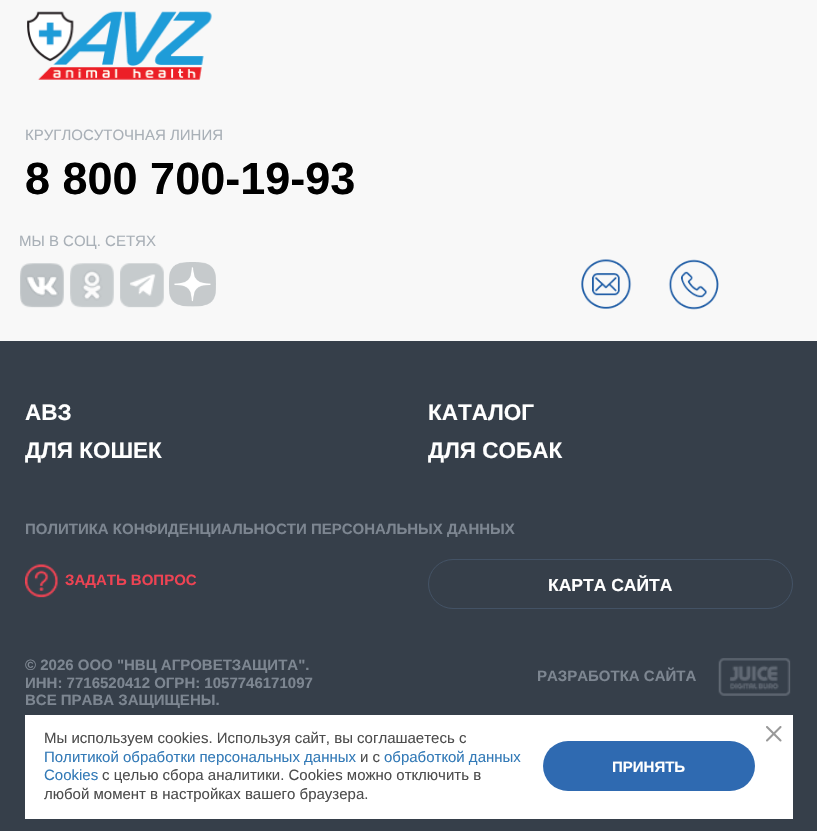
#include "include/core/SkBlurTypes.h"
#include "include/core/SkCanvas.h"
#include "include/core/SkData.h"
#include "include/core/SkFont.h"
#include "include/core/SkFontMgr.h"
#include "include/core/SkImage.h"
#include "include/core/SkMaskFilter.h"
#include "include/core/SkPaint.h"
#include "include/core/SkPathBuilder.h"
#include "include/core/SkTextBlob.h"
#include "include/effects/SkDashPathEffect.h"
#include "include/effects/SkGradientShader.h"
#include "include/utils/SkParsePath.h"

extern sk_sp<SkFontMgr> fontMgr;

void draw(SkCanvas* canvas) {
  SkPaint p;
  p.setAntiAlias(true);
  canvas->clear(SkColorSetRGB(248, 248, 248));
  canvas->drawImageRect(SkImages::DeferredFromEncodedData(SkData::MakeFromFileName("images/1.png")), SkRect::MakeLTRB(27, 11, 212, 80), SkSamplingOptions());
  canvas->drawImageRect(SkImages::DeferredFromEncodedData(SkData::MakeFromFileName("images/2.png")), SkRect::MakeLTRB(20, 263, 64, 308), SkSamplingOptions());
  canvas->drawImageRect(SkImages::DeferredFromEncodedData(SkData::MakeFromFileName("images/3.png")), SkRect::MakeLTRB(70, 263, 114, 308), SkSamplingOptions());
  canvas->drawImageRect(SkImages::DeferredFromEncodedData(SkData::MakeFromFileName("images/4.png")), SkRect::MakeLTRB(120, 263, 164, 308), SkSamplingOptions());
  canvas->drawImageRect(SkImages::DeferredFromEncodedData(SkData::MakeFromFileName("images/5.png")), SkRect::MakeLTRB(169, 262, 216, 307), SkSamplingOptions());
  canvas->drawImageRect(SkImages::DeferredFromEncodedData(SkData::MakeFromFileName("images/6.png")), SkRect::MakeLTRB(581, 259, 632, 309), SkSamplingOptions());
  canvas->drawImageRect(SkImages::DeferredFromEncodedData(SkData::MakeFromFileName("images/7.png")), SkRect::MakeLTRB(668, 259, 719, 310), SkSamplingOptions());
  p.setColor(SkColorSetRGB(54, 63, 74));
  canvas->drawRect(SkRect::MakeLTRB(0, 341, 817, 831), p);
  canvas->drawImageRect(SkImages::DeferredFromEncodedData(SkData::MakeFromFileName("images/8.png")), SkRect::MakeLTRB(25, 564, 58, 598), SkSamplingOptions());
  p.setStyle(SkPaint::kStroke_Style);
  p.setStrokeWidth(1);
  p.setColor(SkColorSetRGB(67, 82, 101));
  canvas->drawRoundRect(SkRect::MakeLTRB(428.5f, 559.5f, 792.5f, 608.5f), 24.5f, 24.5f, p);
  canvas->drawImageRect(SkImages::DeferredFromEncodedData(SkData::MakeFromFileName("images/9.png")), SkRect::MakeLTRB(718, 658, 791, 696), SkSamplingOptions());
  p.setStyle(SkPaint::kFill_Style);
  p.setColor(SK_ColorWHITE);
  canvas->drawRect(SkRect::MakeLTRB(25, 715, 793, 819), p);
  p.setColor(SkColorSetRGB(47, 106, 177));
  canvas->drawRoundRect(SkRect::MakeLTRB(543, 741, 755, 791), 25, 25, p);
  canvas->drawImageRect(SkImages::DeferredFromEncodedData(SkData::MakeFromFileName("images/10.png")), SkRect::MakeLTRB(766, 726, 782, 742), SkSamplingOptions());
  SkFont font1(fontMgr->matchFamilyStyle("Liberation Sans", SkFontStyle::Normal()), 15);
  font1.setSubpixel(true);
  p.setColor(SkColorSetRGB(169, 176, 183));
  canvas->drawString("КРУГЛОСУТОЧНАЯ ЛИНИЯ", 25, 140, font1, p);
  SkFont font2(fontMgr->matchFamilyStyle("Liberation Sans", SkFontStyle::Bold()), 45);
  font2.setSubpixel(true);
  p.setColor(SK_ColorBLACK);
  canvas->drawString("8 800 700-19-93", 25, 194, font2, p);
  p.setColor(SkColorSetRGB(169, 176, 183));
  canvas->drawString("МЫ В СОЦ. СЕТЯХ", 19, 246, font1, p);
  SkFont font3(fontMgr->matchFamilyStyle("Liberation Sans", SkFontStyle::Bold()), 22.5f);
  font3.setSubpixel(true);
  p.setColor(SK_ColorWHITE);
  canvas->drawString("АВЗ", 25, 420, font3, p);
  canvas->drawString("КАТАЛОГ", 428, 420, font3, p);
  canvas->drawString("ДЛЯ КОШЕК", 25, 458, font3, p);
  canvas->drawString("ДЛЯ СОБАК", 428, 458, font3, p);
  SkFont font4(fontMgr->matchFamilyStyle("Liberation Sans", SkFontStyle::Bold()), 15);
  font4.setSubpixel(true);
  p.setColor(SkColorSetRGB(125, 134, 145));
  canvas->drawString("ПОЛИТИКА КОНФИДЕНЦИАЛЬНОСТИ ПЕРСОНАЛЬНЫХ ДАННЫХ", 25, 534, font4, p);
  p.setColor(SkColorSetRGB(238, 67, 83));
  canvas->drawString("ЗАДАТЬ ВОПРОС", 65, 585, font4, p);
  SkFont font5(fontMgr->matchFamilyStyle("Liberation Sans", SkFontStyle::Bold()), 17.5f);
  font5.setSubpixel(true);
  p.setColor(SK_ColorWHITE);
  canvas->drawString("КАРТА САЙТА", 548, 591, font5, p);
  p.setColor(SkColorSetRGB(125, 134, 145));
  canvas->drawString("© 2026 ООО \"НВЦ АГРОВЕТЗАЩИТА\".", 25, 670, font4, p);
  canvas->drawString("ИНН: 7716520412 ОГРН: 1057746171097", 25, 688, font4, p);
  canvas->drawString("ВСЕ ПРАВА ЗАЩИЩЕНЫ.", 25, 705, font4, p);
  canvas->drawString("РАЗРАБОТКА САЙТА", 537, 681, font4, p);
  p.setColor(SkColorSetRGB(77, 77, 77));
  canvas->drawString("Мы используем cookies. Используя сайт, вы соглашаетесь c", 44, 743, font1, p);
  p.setColor(SkColorSetRGB(51, 122, 183));
  canvas->drawString("Политикой обработки персональных данных", 44, 762, font1, p);
  p.setColor(SkColorSetRGB(77, 77, 77));
  canvas->drawString("и с", 360, 762, font1, p);
  p.setColor(SkColorSetRGB(51, 122, 183));
  canvas->drawString("обработкой данных", 384, 762, font1, p);
  canvas->drawString("Cookies", 44, 780, font1, p);
  p.setColor(SkColorSetRGB(77, 77, 77));
  canvas->drawString("с целью сбора аналитики. Cookies можно отключить в", 102, 780, font1, p);
  canvas->drawString("любой момент в настройках вашего браузера.", 44, 799, font1, p);
  p.setColor(SK_ColorWHITE);
  canvas->drawString("ПРИНЯТЬ", 612, 772, font4, p);
}
